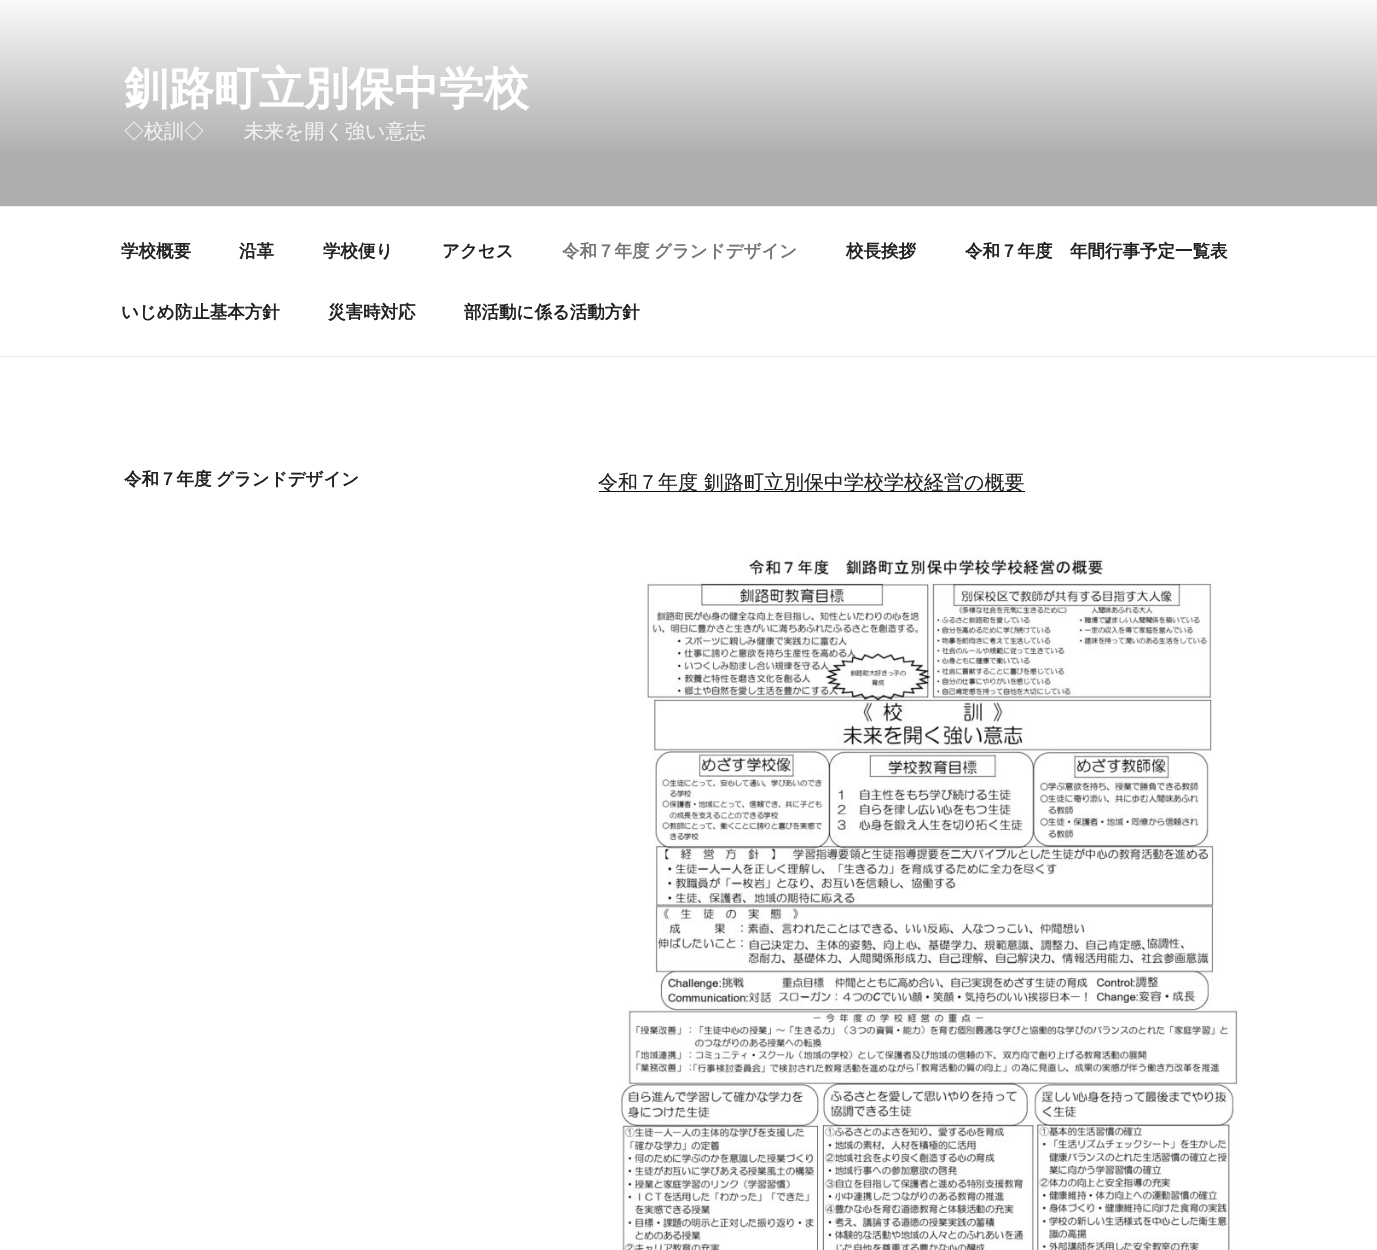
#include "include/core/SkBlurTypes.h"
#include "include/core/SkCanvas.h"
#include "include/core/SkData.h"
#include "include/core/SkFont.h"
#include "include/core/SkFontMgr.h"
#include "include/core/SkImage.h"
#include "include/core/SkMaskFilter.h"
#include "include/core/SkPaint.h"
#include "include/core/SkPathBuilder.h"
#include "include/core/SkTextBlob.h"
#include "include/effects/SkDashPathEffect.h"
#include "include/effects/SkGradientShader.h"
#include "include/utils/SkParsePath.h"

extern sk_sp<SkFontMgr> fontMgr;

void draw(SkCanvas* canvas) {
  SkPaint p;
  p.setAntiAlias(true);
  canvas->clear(SK_ColorWHITE);
  {
    const SkColor colors[] = {SkColorSetRGB(249, 249, 249), SkColorSetRGB(174, 174, 174), SkColorSetRGB(174, 174, 174)};
    const float stops[] = {0, 0.75f, 1};
    const SkPoint ends[] = {{689, 0}, {689, 206}};
    p.setShader(SkGradientShader::MakeLinear(ends, colors, stops, 3, SkTileMode::kClamp));
    p.setAlpha(255);
  }
  canvas->drawRect(SkRect::MakeLTRB(0, 0, 1377, 206), p);
  p.setShader(nullptr);
  p.setColor(SkColorSetRGB(238, 238, 238));
  canvas->drawRect(SkRect::MakeLTRB(0, 206, 1377, 207), p);
  canvas->drawRect(SkRect::MakeLTRB(0, 356, 1377, 357), p);
  p.setColor(SkColorSetRGB(15, 15, 15));
  canvas->drawRect(SkRect::MakeLTRB(599, 491, 1025, 492), p);
  canvas->drawImageRect(SkImages::DeferredFromEncodedData(SkData::MakeFromFileName("images/1.png")), SkRect::MakeLTRB(619, 555, 1238, 1250), SkSamplingOptions());
  SkFont font1(fontMgr->matchFamilyStyle("WenQuanYi Zen Hei", SkFontStyle::Bold()), 45);
  font1.setSubpixel(true);
  p.setColor(SK_ColorWHITE);
  canvas->drawString("釧路町立別保中学校", 124, 104, font1, p);
  SkFont font2(fontMgr->matchFamilyStyle("WenQuanYi Zen Hei", SkFontStyle(500, SkFontStyle::kNormal_Width, SkFontStyle::kUpright_Slant)), 20);
  font2.setSubpixel(true);
  p.setColor(SkColorSetRGB(241, 241, 241));
  canvas->drawString("◇校訓◇　　未来を開く強い意志", 124, 138, font2, p);
  SkFont font3(fontMgr->matchFamilyStyle("WenQuanYi Zen Hei", SkFontStyle::Bold()), 17.5f);
  font3.setSubpixel(true);
  p.setColor(SkColorSetRGB(34, 34, 34));
  canvas->drawString("学校概要", 121, 257, font3, p);
  canvas->drawString("沿革", 239, 257, font3, p);
  canvas->drawString("学校便り", 323, 257, font3, p);
  canvas->drawString("アクセス", 442, 257, font3, p);
  p.setColor(SkColorSetRGB(118, 118, 118));
  canvas->drawString("令和７年度", 562, 257, font3, p);
  canvas->drawString("グランドデザイン", 654, 257, font3, p);
  p.setColor(SkColorSetRGB(34, 34, 34));
  canvas->drawString("校長挨拶", 846, 257, font3, p);
  canvas->drawString("令和７年度　年間行事予定一覧表", 965, 257, font3, p);
  canvas->drawString("いじめ防止基本方針", 121, 318, font3, p);
  canvas->drawString("災害時対応", 328, 318, font3, p);
  canvas->drawString("部活動に係る活動方針", 464, 318, font3, p);
  canvas->drawString("令和７年度", 124, 485, font3, p);
  canvas->drawString("グランドデザイン", 216, 485, font3, p);
  canvas->drawString("令和７年度 釧路町立別保中学校学校経営の概要", 598, 489, font2, p);
}
